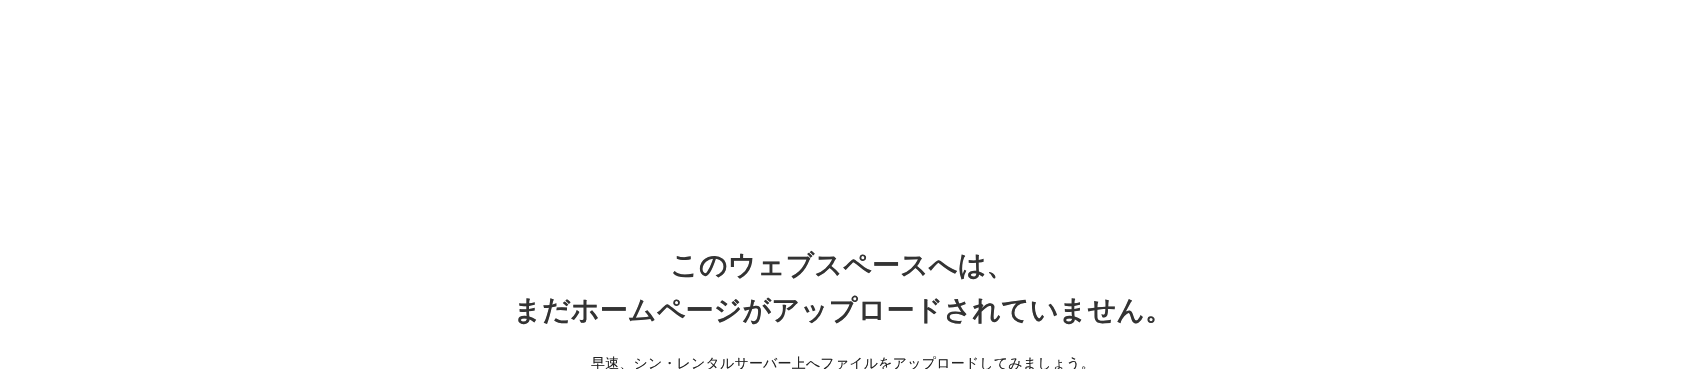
#include "include/core/SkBlurTypes.h"
#include "include/core/SkCanvas.h"
#include "include/core/SkData.h"
#include "include/core/SkFont.h"
#include "include/core/SkFontMgr.h"
#include "include/core/SkImage.h"
#include "include/core/SkMaskFilter.h"
#include "include/core/SkPaint.h"
#include "include/core/SkPathBuilder.h"
#include "include/core/SkTextBlob.h"
#include "include/effects/SkDashPathEffect.h"
#include "include/effects/SkGradientShader.h"
#include "include/utils/SkParsePath.h"

extern sk_sp<SkFontMgr> fontMgr;

void draw(SkCanvas* canvas) {
  SkPaint p;
  p.setAntiAlias(true);
  auto spacedText = [&](const char* s, float x, float y, const SkFont& font, const SkPaint& ink, float letter, float word) {
    std::vector<SkGlyphID> glyphs(font.countText(s, strlen(s), SkTextEncoding::kUTF8));
    std::vector<float> xs(glyphs.size());
    font.textToGlyphs(s, strlen(s), SkTextEncoding::kUTF8, glyphs);
    font.getXPos(glyphs, xs, x);
    float extra = 0;
    for (size_t i = 0; i < glyphs.size(); i++) {
      xs[i] += extra;
      extra += letter + word * (glyphs[i] == font.unicharToGlyph(' '));
    }
    canvas->drawTextBlob(SkTextBlob::MakeFromPosHGlyphs(glyphs, xs, y, font), 0, 0, ink);
  };
  canvas->clear(SK_ColorWHITE);
  SkFont font1(fontMgr->matchFamilyStyle("WenQuanYi Zen Hei", SkFontStyle::Bold()), 28);
  font1.setSubpixel(true);
  p.setColor(SkColorSetRGB(51, 51, 51));
  spacedText("このウェブスペースへは、", 670, 275, font1, p, 0.15f, 0);
  spacedText("まだホームページがアップロードされていません。", 513, 320, font1, p, 0.15f, 0);
  SkFont font2(fontMgr->matchFamilyStyle("WenQuanYi Zen Hei", SkFontStyle(500, SkFontStyle::kNormal_Width, SkFontStyle::kUpright_Slant)), 14);
  font2.setSubpixel(true);
  p.setColor(SkColorSetRGB(34, 34, 34));
  spacedText("早速、シン・レンタルサーバー上へファイルをアップロードしてみましょう。", 591, 368, font2, p, 0.15f, 0);
}
